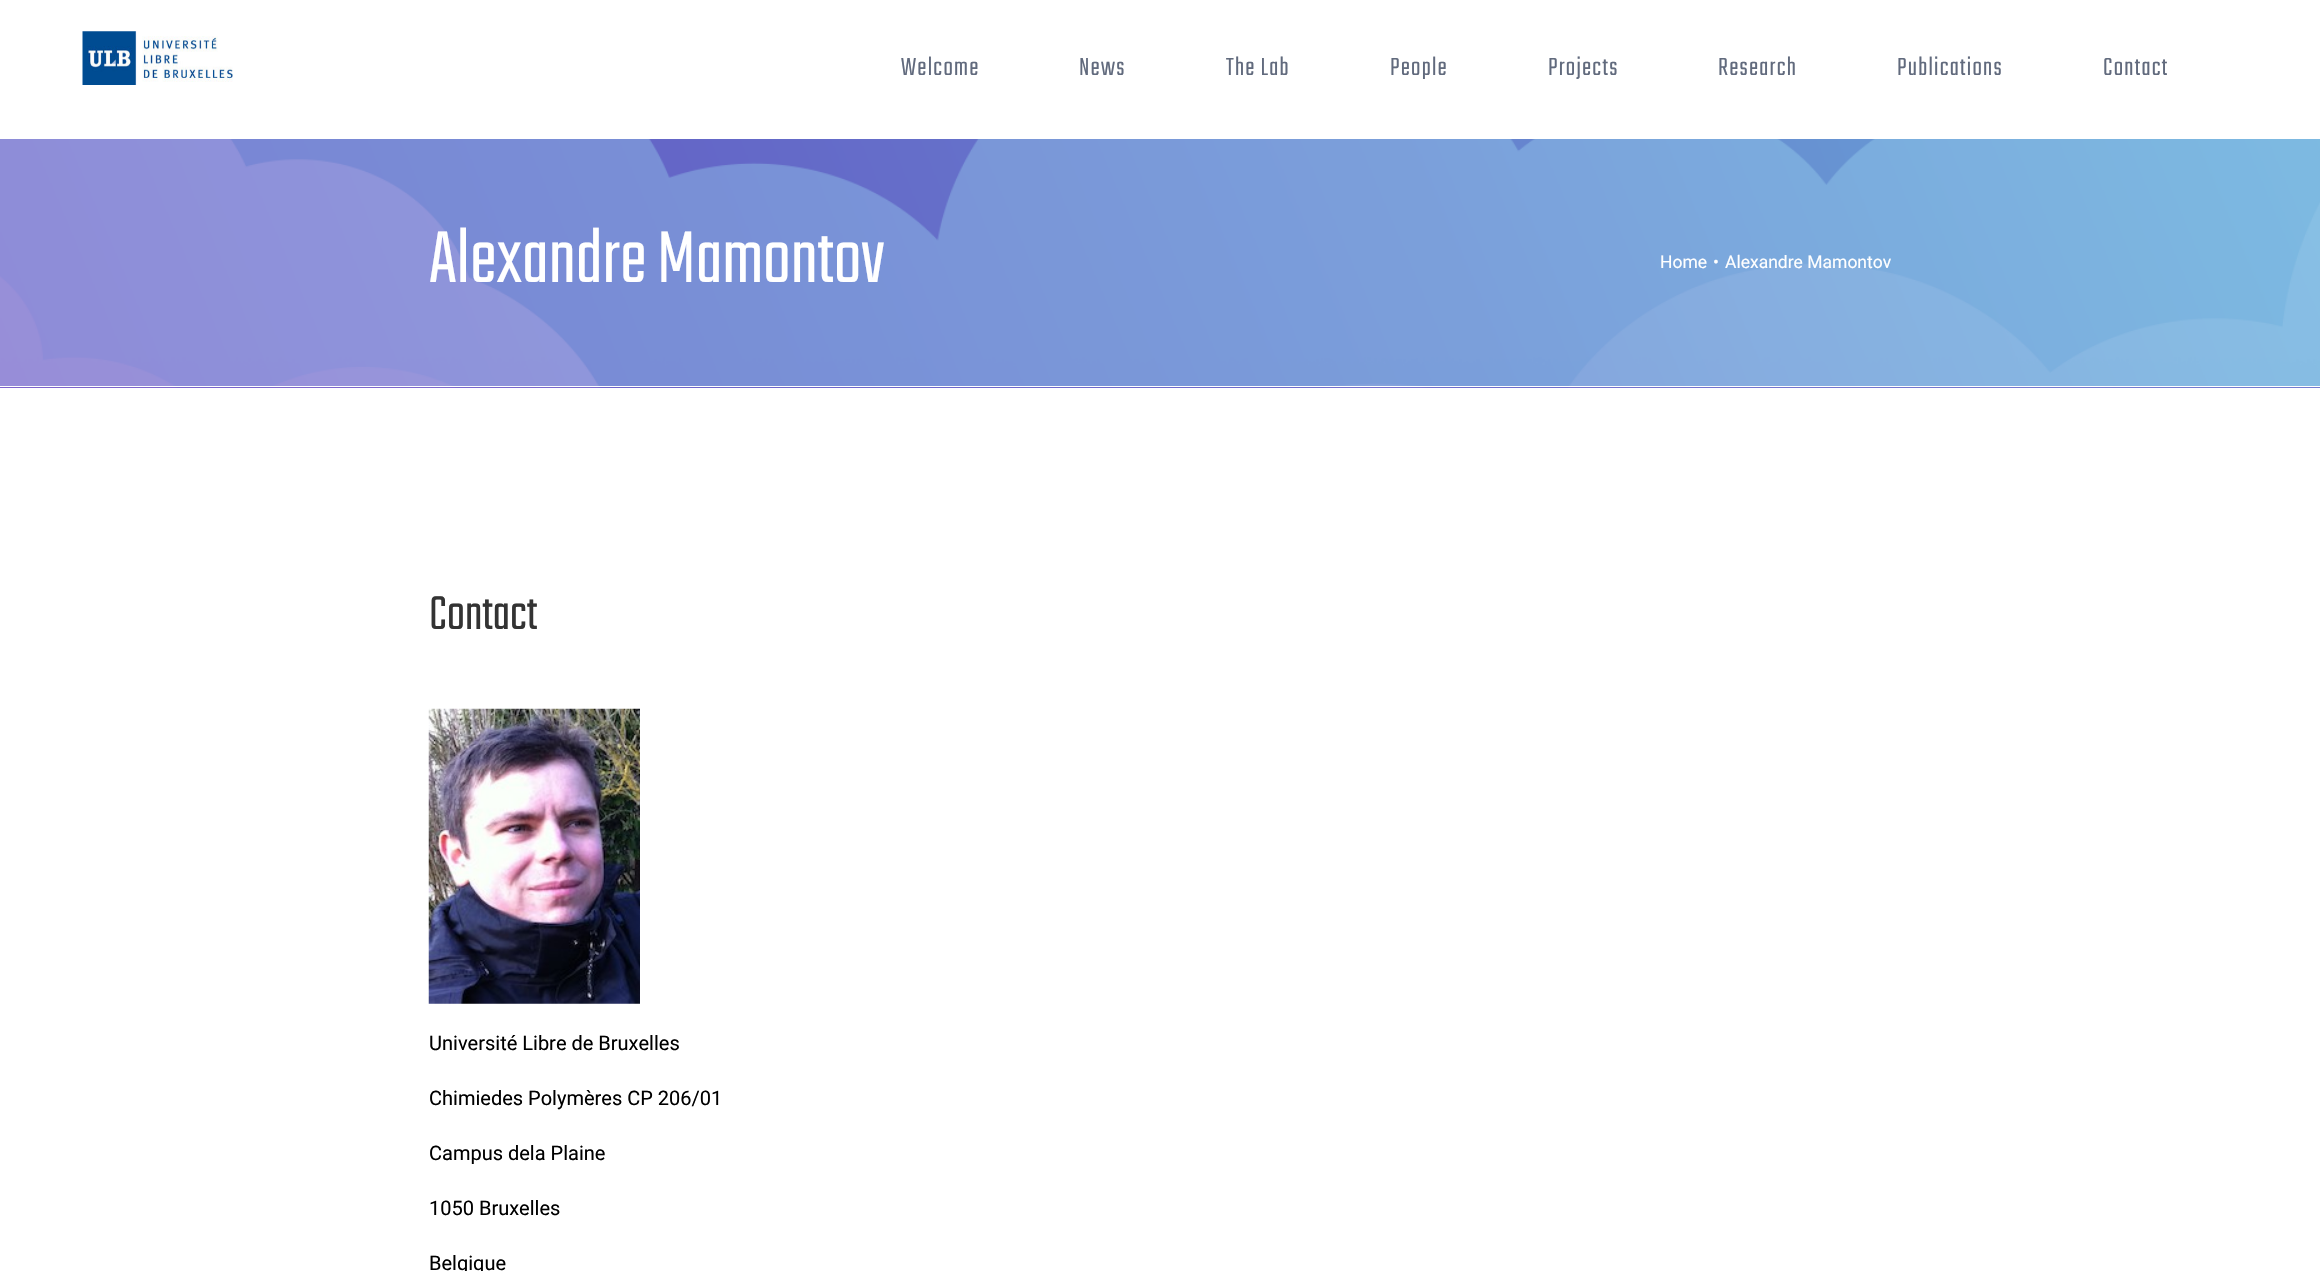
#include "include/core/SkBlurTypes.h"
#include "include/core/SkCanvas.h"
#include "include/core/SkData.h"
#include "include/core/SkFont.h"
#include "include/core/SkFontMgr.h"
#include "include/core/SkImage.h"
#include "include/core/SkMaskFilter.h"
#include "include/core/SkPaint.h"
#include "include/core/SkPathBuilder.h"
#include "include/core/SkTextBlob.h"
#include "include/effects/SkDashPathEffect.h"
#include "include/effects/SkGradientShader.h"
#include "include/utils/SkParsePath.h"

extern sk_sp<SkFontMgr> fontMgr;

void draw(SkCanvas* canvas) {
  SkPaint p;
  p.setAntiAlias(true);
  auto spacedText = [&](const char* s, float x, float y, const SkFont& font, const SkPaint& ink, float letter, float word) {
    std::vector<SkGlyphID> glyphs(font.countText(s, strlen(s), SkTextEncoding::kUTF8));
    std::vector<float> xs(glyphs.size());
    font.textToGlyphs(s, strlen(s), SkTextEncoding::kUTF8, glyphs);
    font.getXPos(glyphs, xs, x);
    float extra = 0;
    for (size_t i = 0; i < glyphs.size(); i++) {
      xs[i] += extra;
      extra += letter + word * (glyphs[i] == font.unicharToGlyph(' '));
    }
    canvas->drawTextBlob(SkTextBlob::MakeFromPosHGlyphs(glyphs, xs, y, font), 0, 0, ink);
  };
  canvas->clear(SK_ColorWHITE);
  canvas->drawImageRect(SkImages::DeferredFromEncodedData(SkData::MakeFromFileName("images/1.png")), SkRect::MakeLTRB(82, 31, 233, 85), SkSamplingOptions());
  p.setColor(SkColorSetRGB(98, 57, 189));
  canvas->drawRect(SkRect::MakeLTRB(0, 387, 2320, 388), p);
  canvas->drawImageRect(SkImages::DeferredFromEncodedData(SkData::MakeFromFileName("images/2.png")), SkRect::MakeLTRB(0, 139, 2320, 388), SkSamplingOptions());
  p.setColor(SK_ColorWHITE);
  canvas->drawRect(SkRect::MakeLTRB(0, 386, 2320, 387), p);
  canvas->drawImageRect(SkImages::DeferredFromEncodedData(SkData::MakeFromFileName("images/3.png")), SkRect::MakeLTRB(428, 708, 640, 1004), SkSamplingOptions());
  SkFont font1(fontMgr->matchFamilyStyle("Teko", SkFontStyle(300, SkFontStyle::kNormal_Width, SkFontStyle::kUpright_Slant)), 27.5f);
  font1.setSubpixel(true);
  p.setColor(SkColorSetRGB(97, 106, 125));
  spacedText("Welcome", 901, 75, font1, p, 1.25f, 0);
  spacedText("News", 1079, 75, font1, p, 1.25f, 0);
  spacedText("The Lab", 1226, 75, font1, p, 1.25f, 0);
  spacedText("People", 1390, 75, font1, p, 1.25f, 0);
  spacedText("Projects", 1548, 75, font1, p, 1.25f, 0);
  spacedText("Research", 1718, 75, font1, p, 1.25f, 0);
  spacedText("Publications", 1897, 75, font1, p, 1.25f, 0);
  spacedText("Contact", 2103, 75, font1, p, 1.25f, 0);
  SkFont font2(fontMgr->matchFamilyStyle("Teko", SkFontStyle(300, SkFontStyle::kNormal_Width, SkFontStyle::kUpright_Slant)), 81.25f);
  font2.setSubpixel(true);
  p.setColor(SK_ColorWHITE);
  canvas->drawString("Alexandre Mamontov", 429, 282, font2, p);
  SkFont font3(fontMgr->matchFamilyStyle("Roboto", SkFontStyle::Normal()), 17.5f);
  font3.setSubpixel(true);
  canvas->drawString("Home", 1660, 268, font3, p);
  canvas->drawString("•", 1713, 268, font3, p);
  canvas->drawString("Alexandre Mamontov", 1725, 268, font3, p);
  SkFont font4(fontMgr->matchFamilyStyle("Teko", SkFontStyle(300, SkFontStyle::kNormal_Width, SkFontStyle::kUpright_Slant)), 52.5f);
  font4.setSubpixel(true);
  p.setColor(SkColorSetRGB(51, 51, 51));
  canvas->drawString("Contact", 429, 629, font4, p);
  SkFont font5(fontMgr->matchFamilyStyle("Roboto", SkFontStyle::Normal()), 20);
  font5.setSubpixel(true);
  p.setColor(SK_ColorBLACK);
  canvas->drawString("Université Libre de Bruxelles", 429, 1050, font5, p);
  canvas->drawString("Chimiedes Polymères CP 206/01", 429, 1105, font5, p);
  canvas->drawString("Campus dela Plaine", 429, 1160, font5, p);
  canvas->drawString("1050 Bruxelles", 429, 1215, font5, p);
  canvas->drawString("Belgique", 429, 1270, font5, p);
}
